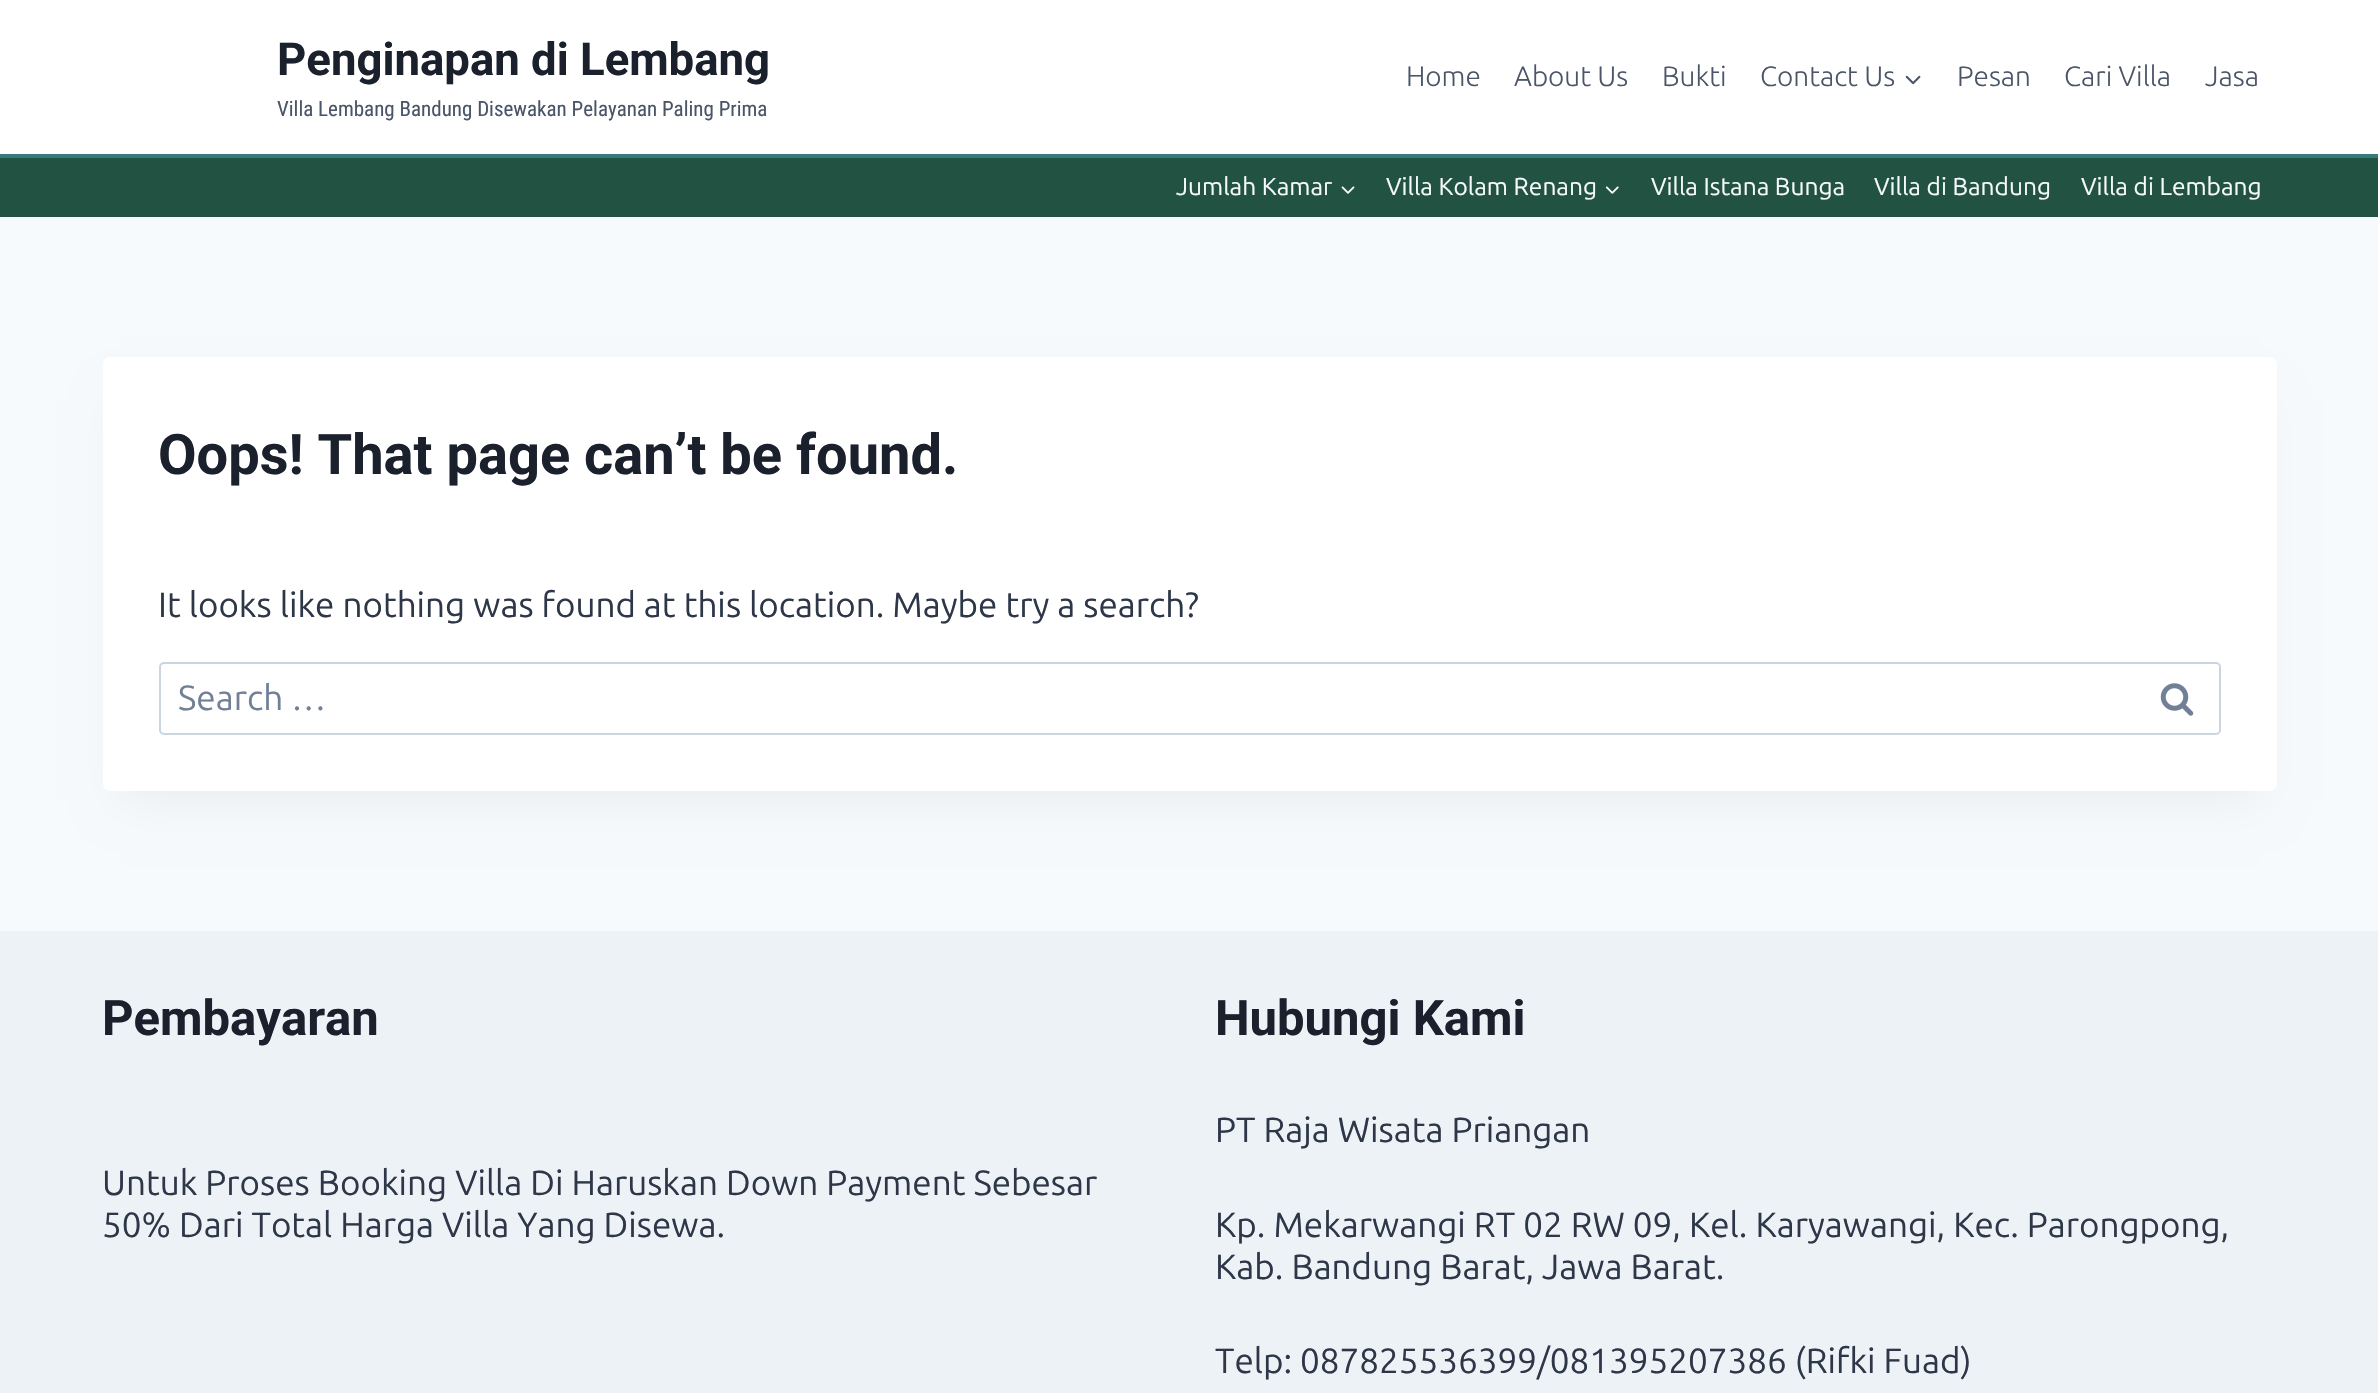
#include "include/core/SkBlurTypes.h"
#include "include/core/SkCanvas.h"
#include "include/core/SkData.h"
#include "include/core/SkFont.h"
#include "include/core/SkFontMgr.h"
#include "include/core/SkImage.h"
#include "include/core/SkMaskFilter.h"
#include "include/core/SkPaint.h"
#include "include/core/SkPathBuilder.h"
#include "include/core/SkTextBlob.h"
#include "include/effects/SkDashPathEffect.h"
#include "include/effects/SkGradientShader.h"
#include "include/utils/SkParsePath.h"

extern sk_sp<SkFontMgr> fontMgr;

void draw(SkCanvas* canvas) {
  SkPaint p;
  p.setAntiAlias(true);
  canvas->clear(SkColorSetRGB(247, 250, 252));
  p.setColor(SK_ColorWHITE);
  canvas->drawRect(SkRect::MakeLTRB(0, 0, 2378, 154), p);
  p.setColor(SkColorSetRGB(53, 123, 123));
  canvas->drawRect(SkRect::MakeLTRB(0, 154, 2378, 158), p);
  canvas->drawImageRect(SkImages::DeferredFromEncodedData(SkData::MakeFromFileName("images/1.png")), SkRect::MakeLTRB(1905, 75, 1921, 85), SkSamplingOptions());
  p.setColor(SkColorSetRGB(34, 82, 65));
  canvas->drawRect(SkRect::MakeLTRB(0, 158, 2378, 217), p);
  canvas->drawImageRect(SkImages::DeferredFromEncodedData(SkData::MakeFromFileName("images/2.png")), SkRect::MakeLTRB(1341, 186, 1355, 194), SkSamplingOptions());
  canvas->drawImageRect(SkImages::DeferredFromEncodedData(SkData::MakeFromFileName("images/3.png")), SkRect::MakeLTRB(1605, 186, 1619, 194), SkSamplingOptions());
  p.setColor(SkColorSetARGB(13, 0, 0, 0));
  p.setMaskFilter(SkMaskFilter::MakeBlur(kNormal_SkBlurStyle, 22));
  canvas->drawRect(SkRect::MakeLTRB(121, 401, 2259, 800), p);
  p.setMaskFilter(nullptr);
  p.setColor(SK_ColorWHITE);
  canvas->drawRoundRect(SkRect::MakeLTRB(103, 357, 2277, 791), 7, 7, p);
  p.setStyle(SkPaint::kStroke_Style);
  p.setStrokeWidth(2);
  p.setColor(SkColorSetRGB(203, 213, 224));
  canvas->drawRoundRect(SkRect::MakeLTRB(160, 663, 2220, 734), 4, 4, p);
  canvas->drawImageRect(SkImages::DeferredFromEncodedData(SkData::MakeFromFileName("images/4.png")), SkRect::MakeLTRB(2160, 683, 2194, 716), SkSamplingOptions());
  p.setStyle(SkPaint::kFill_Style);
  p.setColor(SkColorSetRGB(237, 242, 247));
  canvas->drawRect(SkRect::MakeLTRB(0, 931, 2378, 1393), p);
  SkFont font1(fontMgr->matchFamilyStyle("Roboto", SkFontStyle::Bold()), 45.5f);
  font1.setSubpixel(true);
  p.setColor(SkColorSetRGB(26, 32, 44));
  canvas->drawString("Penginapan di Lembang", 277, 75, font1, p);
  SkFont font2(fontMgr->matchFamilyStyle("Roboto Condensed", SkFontStyle::Normal()), 21);
  font2.setSubpixel(true);
  p.setColor(SkColorSetRGB(74, 85, 104));
  canvas->drawString("Villa Lembang Bandung Disewakan Pelayanan Paling Prima", 277, 116, font2, p);
  SkFont font3(fontMgr->matchFamilyStyle("Ubuntu", SkFontStyle(300, SkFontStyle::kNormal_Width, SkFontStyle::kUpright_Slant)), 28);
  font3.setSubpixel(true);
  canvas->drawString("Home", 1406, 86, font3, p);
  canvas->drawString("About Us", 1514, 86, font3, p);
  canvas->drawString("Bukti", 1662, 86, font3, p);
  canvas->drawString("Contact Us", 1760, 86, font3, p);
  canvas->drawString("Pesan", 1957, 86, font3, p);
  canvas->drawString("Cari Villa", 2064, 86, font3, p);
  canvas->drawString("Jasa", 2205, 86, font3, p);
  SkFont font4(fontMgr->matchFamilyStyle("Ubuntu", SkFontStyle::Normal()), 24.5f);
  font4.setSubpixel(true);
  p.setColor(SkColorSetRGB(247, 250, 252));
  canvas->drawString("Jumlah Kamar", 1176, 195, font4, p);
  canvas->drawString("Villa Kolam Renang", 1386, 195, font4, p);
  canvas->drawString("Villa Istana Bunga", 1651, 195, font4, p);
  canvas->drawString("Villa di Bandung", 1874, 195, font4, p);
  canvas->drawString("Villa di Lembang", 2081, 195, font4, p);
  SkFont font5(fontMgr->matchFamilyStyle("Roboto", SkFontStyle::Bold()), 56);
  font5.setSubpixel(true);
  p.setColor(SkColorSetRGB(26, 32, 44));
  canvas->drawString("Oops! That page can’t be found.", 158, 474, font5, p);
  SkFont font6(fontMgr->matchFamilyStyle("Ubuntu", SkFontStyle::Normal()), 35);
  font6.setSubpixel(true);
  p.setColor(SkColorSetRGB(45, 55, 72));
  canvas->drawString("It looks like nothing was found at this location. Maybe try a search?", 158, 617, font6, p);
  p.setColor(SkColorSetRGB(113, 128, 150));
  canvas->drawString("Search …", 178, 710, font6, p);
  SkFont font7(fontMgr->matchFamilyStyle("Roboto", SkFontStyle::Bold()), 49);
  font7.setSubpixel(true);
  p.setColor(SkColorSetRGB(26, 32, 44));
  canvas->drawString("Pembayaran", 102, 1035, font7, p);
  p.setColor(SkColorSetRGB(45, 55, 72));
  canvas->drawString("Untuk Proses Booking Villa Di Haruskan Down Payment Sebesar", 102, 1195, font6, p);
  canvas->drawString("50% Dari Total Harga Villa Yang Disewa.", 102, 1237, font6, p);
  p.setColor(SkColorSetRGB(26, 32, 44));
  canvas->drawString("Hubungi Kami", 1215, 1035, font7, p);
  p.setColor(SkColorSetRGB(45, 55, 72));
  canvas->drawString("PT Raja Wisata Priangan", 1215, 1142, font6, p);
  canvas->drawString("Kp. Mekarwangi RT 02 RW 09, Kel. Karyawangi, Kec. Parongpong,", 1215, 1237, font6, p);
  canvas->drawString("Kab. Bandung Barat, Jawa Barat.", 1215, 1279, font6, p);
  canvas->drawString("Telp: 087825536399/081395207386 (Rifki Fuad)", 1215, 1373, font6, p);
}
